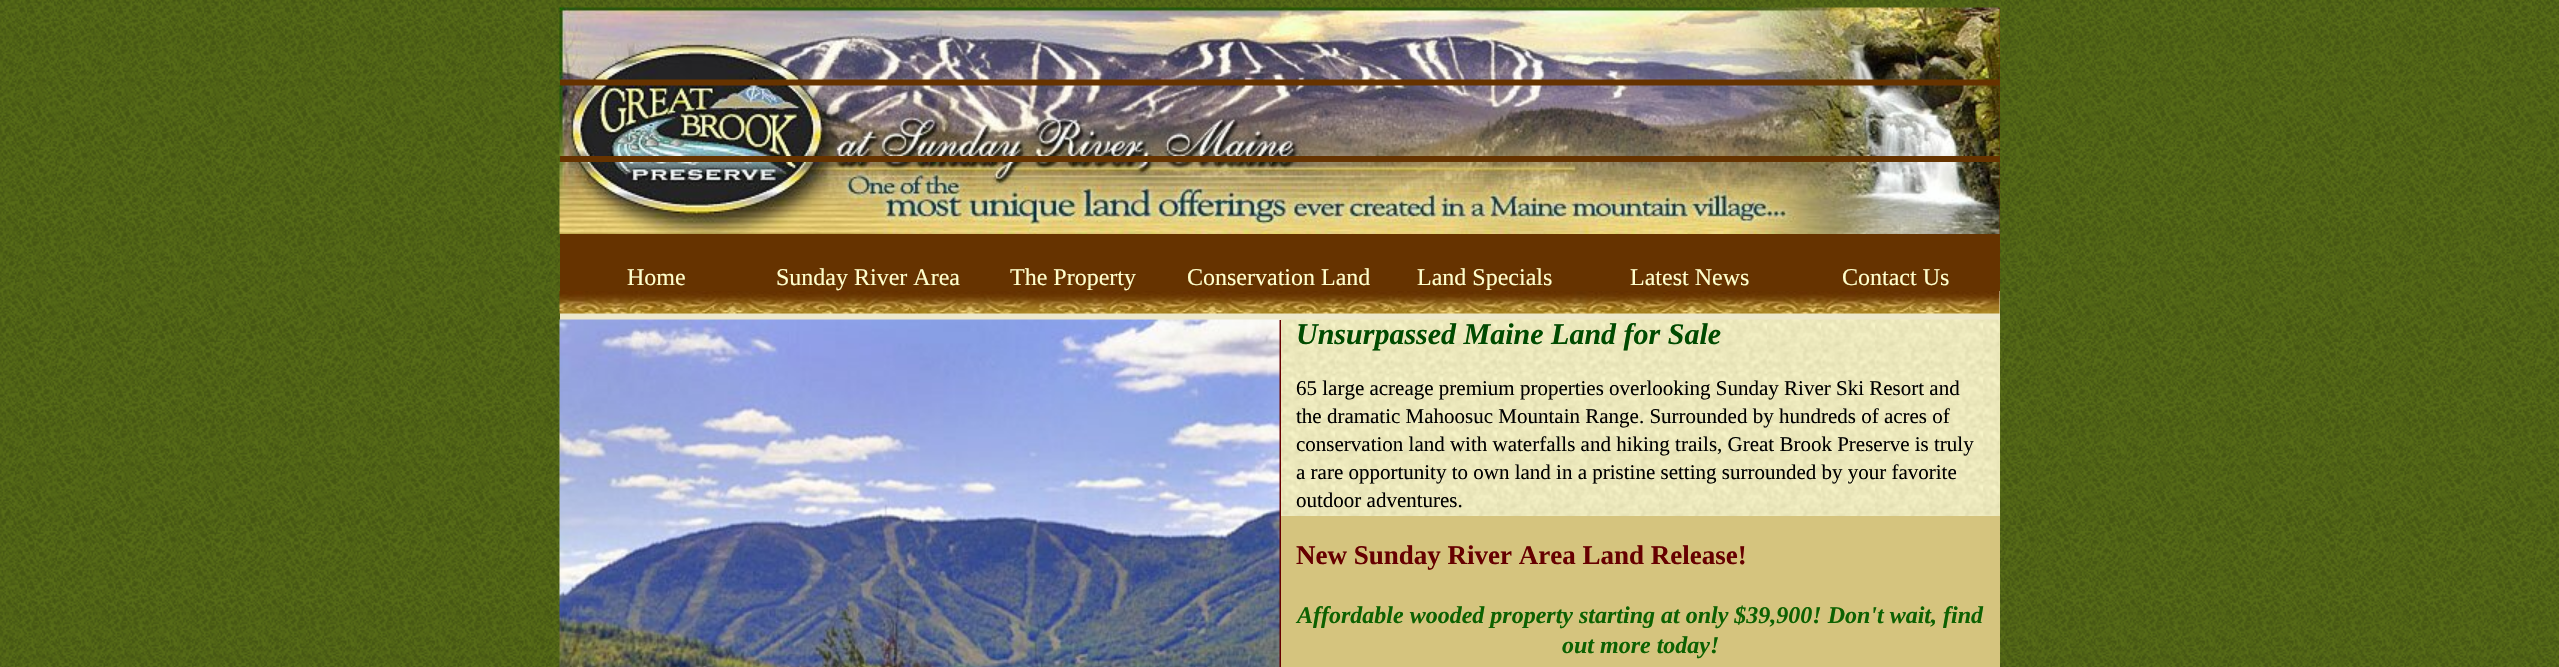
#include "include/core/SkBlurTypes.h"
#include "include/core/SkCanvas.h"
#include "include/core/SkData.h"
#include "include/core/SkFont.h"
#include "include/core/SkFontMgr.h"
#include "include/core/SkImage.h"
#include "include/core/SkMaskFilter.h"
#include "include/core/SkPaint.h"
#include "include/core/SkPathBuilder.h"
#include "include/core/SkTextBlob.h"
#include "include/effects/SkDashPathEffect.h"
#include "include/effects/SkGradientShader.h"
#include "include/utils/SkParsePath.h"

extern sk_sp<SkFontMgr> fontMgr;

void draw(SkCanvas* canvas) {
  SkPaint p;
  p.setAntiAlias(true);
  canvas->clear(SK_ColorWHITE);
  canvas->drawImageRect(SkImages::DeferredFromEncodedData(SkData::MakeFromFileName("images/1.png")), SkRect::MakeLTRB(0, 0, 2559, 667), SkSamplingOptions());
  p.setColor(SkColorSetRGB(102, 51, 0));
  canvas->drawRect(SkRect::MakeLTRB(560, 8, 2000, 291), p);
  canvas->drawImageRect(SkImages::DeferredFromEncodedData(SkData::MakeFromFileName("images/2.png")), SkRect::MakeLTRB(559, 7, 2000, 80), SkSamplingOptions());
  canvas->drawImageRect(SkImages::DeferredFromEncodedData(SkData::MakeFromFileName("images/3.png")), SkRect::MakeLTRB(559, 85, 2000, 156), SkSamplingOptions());
  canvas->drawImageRect(SkImages::DeferredFromEncodedData(SkData::MakeFromFileName("images/4.png")), SkRect::MakeLTRB(559, 162, 2000, 234), SkSamplingOptions());
  p.setColor(SkColorSetRGB(237, 232, 203));
  canvas->drawRect(SkRect::MakeLTRB(560, 291, 2000, 320), p);
  canvas->drawImageRect(SkImages::DeferredFromEncodedData(SkData::MakeFromFileName("images/5.png")), SkRect::MakeLTRB(559, 291, 2000, 314), SkSamplingOptions());
  p.setColor(SkColorSetRGB(102, 0, 0));
  canvas->drawRect(SkRect::MakeLTRB(1279, 320, 1281, 667), p);
  canvas->drawImageRect(SkImages::DeferredFromEncodedData(SkData::MakeFromFileName("images/6.png")), SkRect::MakeLTRB(559, 319, 1280, 667), SkSamplingOptions());
  p.setColor(SkColorSetRGB(238, 236, 185));
  canvas->drawRect(SkRect::MakeLTRB(1999, 320, 2000, 516), p);
  canvas->drawImageRect(SkImages::DeferredFromEncodedData(SkData::MakeFromFileName("images/7.png")), SkRect::MakeLTRB(1281, 319, 2000, 516), SkSamplingOptions());
  p.setColor(SkColorSetRGB(213, 196, 126));
  canvas->drawRect(SkRect::MakeLTRB(1281, 516, 2000, 667), p);
  SkFont font1(fontMgr->matchFamilyStyle("Liberation Serif", SkFontStyle::Normal()), 24);
  font1.setSubpixel(true);
  p.setColor(SkColorSetRGB(255, 255, 204));
  canvas->drawString("Home", 627, 285, font1, p);
  canvas->drawString("Sunday River Area", 776, 285, font1, p);
  canvas->drawString("The Property", 1010, 285, font1, p);
  canvas->drawString("Conservation Land", 1187, 285, font1, p);
  canvas->drawString("Land Specials", 1417, 285, font1, p);
  canvas->drawString("Latest News", 1630, 285, font1, p);
  canvas->drawString("Contact Us", 1842, 285, font1, p);
  SkFont font2(fontMgr->matchFamilyStyle("Liberation Serif", SkFontStyle::BoldItalic()), 30);
  font2.setSubpixel(true);
  p.setColor(SkColorSetRGB(0, 74, 0));
  canvas->drawString("Unsurpassed Maine Land for Sale", 1296, 344, font2, p);
  SkFont font3(fontMgr->matchFamilyStyle("Liberation Serif", SkFontStyle::Normal()), 21);
  font3.setSubpixel(true);
  p.setColor(SK_ColorBLACK);
  canvas->drawString("65 large acreage premium properties overlooking Sunday River Ski Resort and", 1296, 395, font3, p);
  canvas->drawString("the dramatic Mahoosuc Mountain Range. Surrounded by hundreds of acres of", 1296, 423, font3, p);
  canvas->drawString("conservation land with waterfalls and hiking trails, Great Brook Preserve is truly", 1296, 451, font3, p);
  canvas->drawString("a rare opportunity to own land in a pristine setting surrounded by your favorite", 1296, 479, font3, p);
  canvas->drawString("outdoor adventures.", 1296, 507, font3, p);
  SkFont font4(fontMgr->matchFamilyStyle("Liberation Serif", SkFontStyle::Bold()), 27);
  font4.setSubpixel(true);
  p.setColor(SkColorSetRGB(102, 0, 0));
  canvas->drawString("New Sunday River Area Land Release!", 1296, 564, font4, p);
  SkFont font5(fontMgr->matchFamilyStyle("Liberation Serif", SkFontStyle::BoldItalic()), 24);
  font5.setSubpixel(true);
  p.setColor(SkColorSetRGB(13, 97, 1));
  canvas->drawString("Affordable wooded property starting at only $39,900! Don't wait, find", 1297, 623, font5, p);
  canvas->drawString("out more today!", 1562, 653, font5, p);
}
